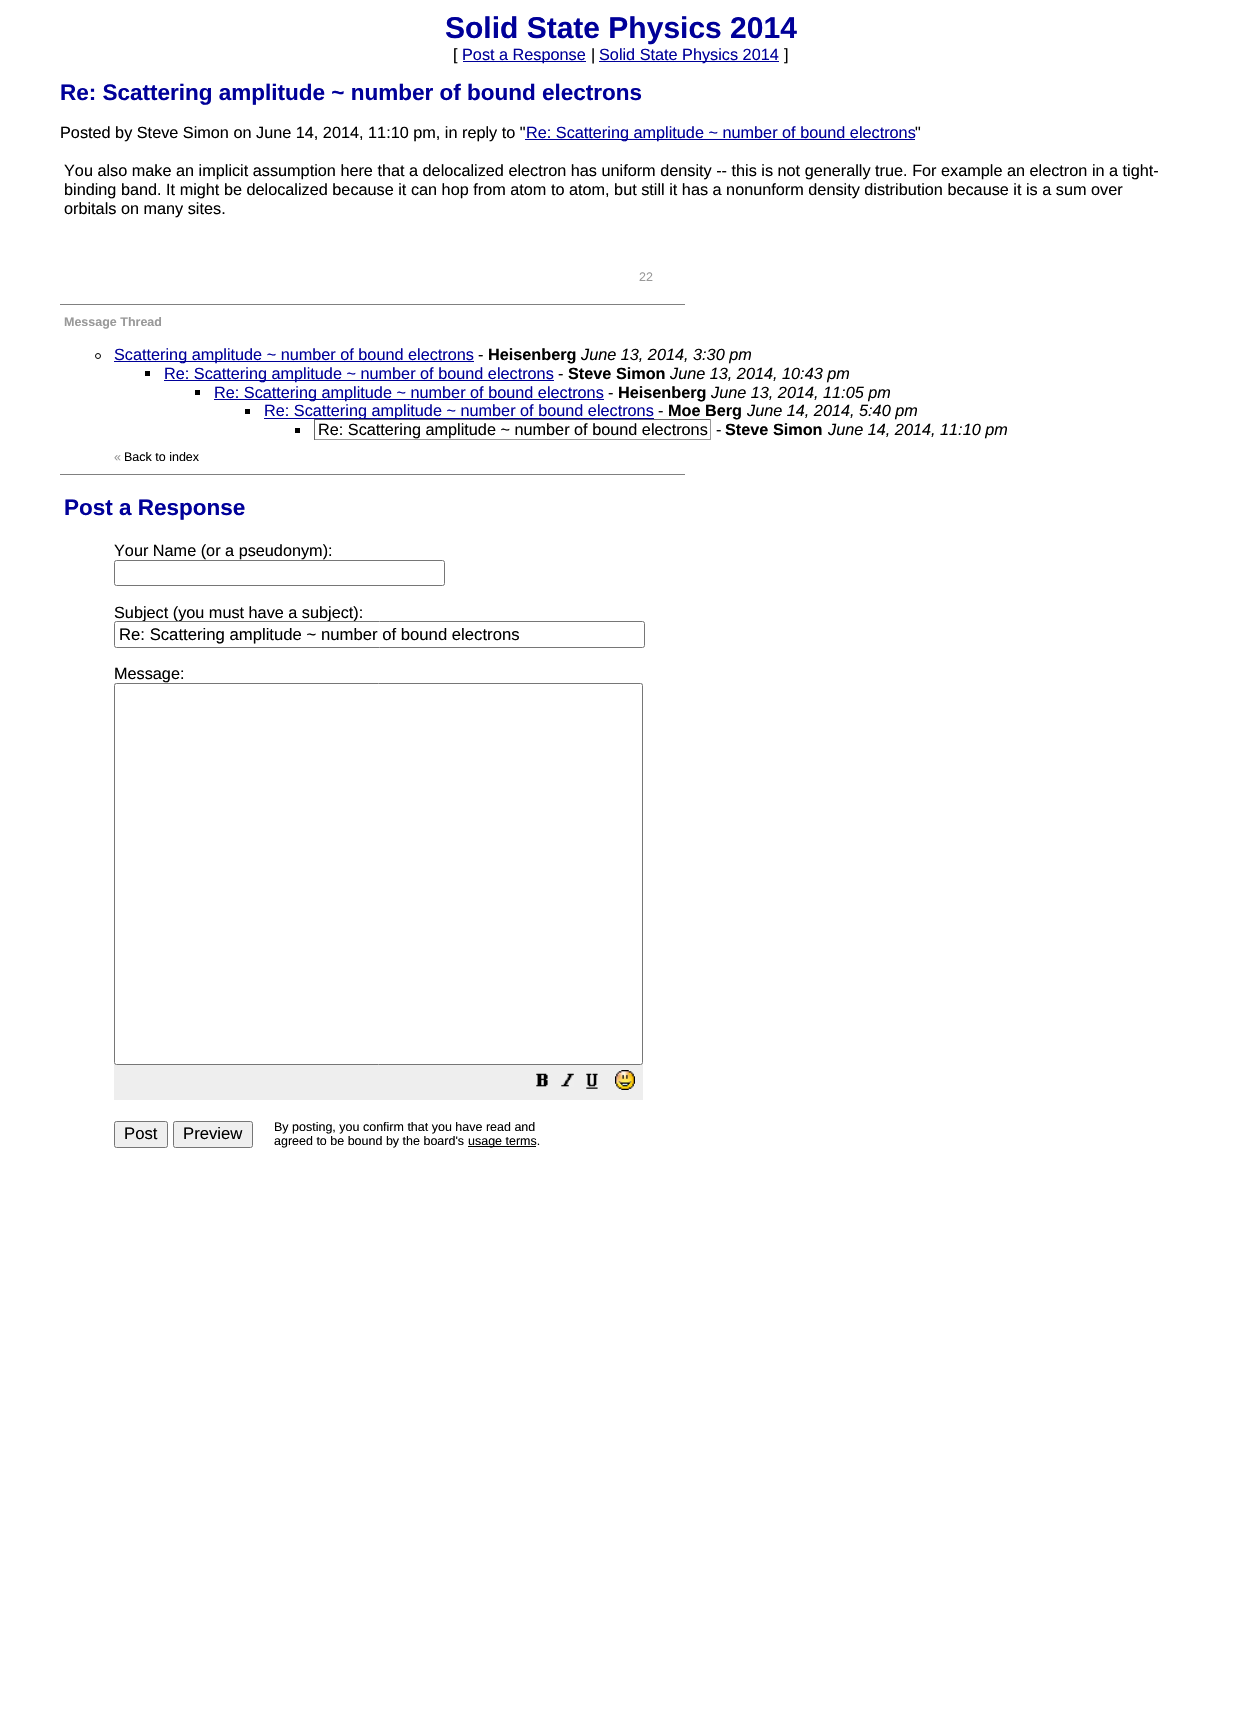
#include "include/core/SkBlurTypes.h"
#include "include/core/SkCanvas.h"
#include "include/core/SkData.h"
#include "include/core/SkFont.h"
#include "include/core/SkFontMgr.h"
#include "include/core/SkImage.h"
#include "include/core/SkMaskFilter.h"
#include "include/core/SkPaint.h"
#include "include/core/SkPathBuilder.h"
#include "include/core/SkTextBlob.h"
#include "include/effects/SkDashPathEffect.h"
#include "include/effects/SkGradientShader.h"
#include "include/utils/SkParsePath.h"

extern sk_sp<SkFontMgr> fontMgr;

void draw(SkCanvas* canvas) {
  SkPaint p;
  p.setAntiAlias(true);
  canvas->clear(SK_ColorWHITE);
  p.setColor(SkColorSetRGB(0, 0, 153));
  canvas->drawRect(SkRect::MakeLTRB(463, 61, 586, 62), p);
  canvas->drawRect(SkRect::MakeLTRB(599, 61, 779, 62), p);
  canvas->drawRect(SkRect::MakeLTRB(525, 139, 915, 140), p);
  p.setColor(SkColorSetRGB(128, 128, 128));
  canvas->drawRect(SkRect::MakeLTRB(60, 304, 685, 305), p);
  p.setStyle(SkPaint::kStroke_Style);
  p.setStrokeWidth(1);
  p.setColor(SK_ColorBLACK);
  canvas->drawCircle(98, 356, 2.5f, p);
  p.setStyle(SkPaint::kFill_Style);
  p.setColor(SkColorSetRGB(0, 0, 153));
  canvas->drawRect(SkRect::MakeLTRB(114, 361, 474, 362), p);
  p.setColor(SK_ColorBLACK);
  canvas->drawRect(SkRect::MakeLTRB(145, 371, 150, 376), p);
  p.setColor(SkColorSetRGB(0, 0, 153));
  canvas->drawRect(SkRect::MakeLTRB(164, 380, 554, 381), p);
  p.setColor(SK_ColorBLACK);
  canvas->drawRect(SkRect::MakeLTRB(195, 390, 200, 395), p);
  p.setColor(SkColorSetRGB(0, 0, 153));
  canvas->drawRect(SkRect::MakeLTRB(214, 399, 604, 400), p);
  p.setColor(SK_ColorBLACK);
  canvas->drawRect(SkRect::MakeLTRB(245, 409, 250, 414), p);
  p.setColor(SkColorSetRGB(0, 0, 153));
  canvas->drawRect(SkRect::MakeLTRB(264, 418, 654, 419), p);
  p.setColor(SK_ColorBLACK);
  canvas->drawRect(SkRect::MakeLTRB(295, 428, 300, 433), p);
  p.setColor(SkColorSetRGB(128, 128, 128));
  canvas->drawRect(SkRect::MakeLTRB(60, 474, 685, 475), p);
  p.setStyle(SkPaint::kStroke_Style);
  p.setColor(SkColorSetRGB(118, 118, 118));
  canvas->drawRoundRect(SkRect::MakeLTRB(114.5f, 560.5f, 444.5f, 585.5f), 2, 2, p);
  p.setStyle(SkPaint::kFill_Style);
  p.setColor(SkColorSetRGB(238, 238, 238));
  canvas->drawRect(SkRect::MakeLTRB(114, 683, 643, 1100), p);
  p.setColor(SK_ColorWHITE);
  canvas->drawRoundRect(SkRect::MakeLTRB(114.5f, 683.5f, 642.5f, 1064.5f), 2, 2, p);
  p.setStyle(SkPaint::kStroke_Style);
  p.setColor(SkColorSetRGB(118, 118, 118));
  canvas->drawRoundRect(SkRect::MakeLTRB(114.5f, 683.5f, 642.5f, 1064.5f), 2, 2, p);
  canvas->drawImageRect(SkImages::DeferredFromEncodedData(SkData::MakeFromFileName("images/1.png")), SkRect::MakeLTRB(536, 1073, 548, 1087), SkSamplingOptions());
  canvas->drawImageRect(SkImages::DeferredFromEncodedData(SkData::MakeFromFileName("images/2.png")), SkRect::MakeLTRB(561, 1073, 574, 1087), SkSamplingOptions());
  canvas->drawImageRect(SkImages::DeferredFromEncodedData(SkData::MakeFromFileName("images/3.png")), SkRect::MakeLTRB(586, 1073, 598, 1089), SkSamplingOptions());
  canvas->drawImageRect(SkImages::DeferredFromEncodedData(SkData::MakeFromFileName("images/4.png")), SkRect::MakeLTRB(615, 1070, 635, 1090), SkSamplingOptions());
  p.setStyle(SkPaint::kFill_Style);
  p.setColor(SkColorSetRGB(239, 239, 239));
  canvas->drawRoundRect(SkRect::MakeLTRB(114.5f, 1121.5f, 167.5f, 1147.5f), 2, 2, p);
  p.setStyle(SkPaint::kStroke_Style);
  p.setColor(SkColorSetRGB(118, 118, 118));
  canvas->drawRoundRect(SkRect::MakeLTRB(114.5f, 1121.5f, 167.5f, 1147.5f), 2, 2, p);
  p.setStyle(SkPaint::kFill_Style);
  p.setColor(SkColorSetRGB(239, 239, 239));
  canvas->drawRoundRect(SkRect::MakeLTRB(173.5f, 1121.5f, 252.5f, 1147.5f), 2, 2, p);
  p.setStyle(SkPaint::kStroke_Style);
  p.setColor(SkColorSetRGB(118, 118, 118));
  canvas->drawRoundRect(SkRect::MakeLTRB(173.5f, 1121.5f, 252.5f, 1147.5f), 2, 2, p);
  p.setStyle(SkPaint::kFill_Style);
  p.setColor(SK_ColorBLACK);
  canvas->drawRect(SkRect::MakeLTRB(468, 1146, 536, 1147), p);
  SkFont font1(fontMgr->matchFamilyStyle("Liberation Sans", SkFontStyle::Bold()), 30);
  font1.setSubpixel(true);
  p.setColor(SkColorSetRGB(0, 0, 153));
  canvas->drawString("Solid State Physics 2014", 445, 38, font1, p);
  SkFont font2(fontMgr->matchFamilyStyle("Liberation Sans", SkFontStyle::Normal()), 16.25f);
  font2.setSubpixel(true);
  p.setColor(SK_ColorBLACK);
  canvas->drawString("[", 453, 60, font2, p);
  p.setColor(SkColorSetRGB(0, 0, 153));
  canvas->drawString("Post a Response", 462, 60, font2, p);
  p.setColor(SK_ColorBLACK);
  canvas->drawString("|", 591, 60, font2, p);
  p.setColor(SkColorSetRGB(0, 0, 153));
  canvas->drawString("Solid State Physics 2014", 599, 60, font2, p);
  p.setColor(SK_ColorBLACK);
  canvas->drawString("]", 784, 60, font2, p);
  SkFont font3(fontMgr->matchFamilyStyle("Liberation Sans", SkFontStyle::Bold()), 22.5f);
  font3.setSubpixel(true);
  p.setColor(SkColorSetRGB(0, 0, 153));
  canvas->drawString("Re: Scattering amplitude ~ number of bound electrons", 60, 100, font3, p);
  p.setColor(SK_ColorBLACK);
  canvas->drawString("Posted by Steve Simon on June 14, 2014, 11:10 pm, in reply to \"", 60, 138, font2, p);
  p.setColor(SkColorSetRGB(0, 0, 153));
  canvas->drawString("Re: Scattering amplitude ~ number of bound electrons", 526, 138, font2, p);
  p.setColor(SK_ColorBLACK);
  canvas->drawString("\"", 915, 138, font2, p);
  canvas->drawString("You also make an implicit assumption here that a delocalized electron has uniform density -- this is not generally true. For example an electron in a tight-", 64, 176, font2, p);
  canvas->drawString("binding band. It might be delocalized because it can hop from atom to atom, but still it has a nonunform density distribution because it is a sum over", 64, 195, font2, p);
  canvas->drawString("orbitals on many sites.", 64, 214, font2, p);
  SkFont font4(fontMgr->matchFamilyStyle("Liberation Sans", SkFontStyle::Normal()), 12.5f);
  font4.setSubpixel(true);
  p.setColor(SkColorSetRGB(153, 153, 153));
  canvas->drawString("22", 639, 281, font4, p);
  SkFont font5(fontMgr->matchFamilyStyle("Liberation Sans", SkFontStyle::Bold()), 12.5f);
  font5.setSubpixel(true);
  canvas->drawString("Message Thread", 64, 326, font5, p);
  p.setColor(SkColorSetRGB(0, 0, 153));
  canvas->drawString("Scattering amplitude ~ number of bound electrons", 114, 360, font2, p);
  p.setColor(SK_ColorBLACK);
  canvas->drawString("-", 478, 360, font2, p);
  SkFont font6(fontMgr->matchFamilyStyle("Liberation Sans", SkFontStyle::Bold()), 16.25f);
  font6.setSubpixel(true);
  canvas->drawString("Heisenberg", 488, 360, font6, p);
  SkFont font7(fontMgr->matchFamilyStyle("Liberation Sans", SkFontStyle::Italic()), 16.25f);
  font7.setSubpixel(true);
  canvas->drawString("June 13, 2014, 3:30 pm", 581, 360, font7, p);
  p.setColor(SkColorSetRGB(0, 0, 153));
  canvas->drawString("Re: Scattering amplitude ~ number of bound electrons", 164, 379, font2, p);
  p.setColor(SK_ColorBLACK);
  canvas->drawString("-", 558, 379, font2, p);
  canvas->drawString("Steve Simon", 568, 379, font6, p);
  canvas->drawString("June 13, 2014, 10:43 pm", 670, 379, font7, p);
  p.setColor(SkColorSetRGB(0, 0, 153));
  canvas->drawString("Re: Scattering amplitude ~ number of bound electrons", 214, 398, font2, p);
  p.setColor(SK_ColorBLACK);
  canvas->drawString("-", 608, 398, font2, p);
  canvas->drawString("Heisenberg", 618, 398, font6, p);
  canvas->drawString("June 13, 2014, 11:05 pm", 711, 398, font7, p);
  p.setColor(SkColorSetRGB(0, 0, 153));
  canvas->drawString("Re: Scattering amplitude ~ number of bound electrons", 264, 416, font2, p);
  p.setColor(SK_ColorBLACK);
  canvas->drawString("-", 658, 416, font2, p);
  canvas->drawString("Moe Berg", 668, 416, font6, p);
  canvas->drawString("June 14, 2014, 5:40 pm", 747, 416, font7, p);
  canvas->drawString("Re: Scattering amplitude ~ number of bound electrons", 318, 435, font2, p);
  p.setColor(SkColorSetRGB(102, 102, 102));
  canvas->drawRect(SkRect::MakeLTRB(314, 419, 711, 420), p);
  p.setColor(SkColorSetRGB(153, 153, 153));
  canvas->drawRect(SkRect::MakeLTRB(710, 419, 711, 440), p);
  canvas->drawRect(SkRect::MakeLTRB(314, 439, 711, 440), p);
  p.setColor(SkColorSetRGB(102, 102, 102));
  canvas->drawRect(SkRect::MakeLTRB(314, 419, 315, 440), p);
  p.setColor(SK_ColorBLACK);
  canvas->drawString("-", 716, 435, font2, p);
  canvas->drawString("Steve Simon", 725, 435, font6, p);
  canvas->drawString("June 14, 2014, 11:10 pm", 828, 435, font7, p);
  p.setColor(SkColorSetRGB(153, 153, 153));
  canvas->drawString("«", 114, 461, font4, p);
  p.setColor(SK_ColorBLACK);
  canvas->drawString("Back to index", 124, 461, font4, p);
  p.setColor(SkColorSetRGB(0, 0, 153));
  canvas->drawString("Post a Response", 64, 515, font3, p);
  p.setColor(SK_ColorBLACK);
  canvas->drawString("Your Name (or a pseudonym):", 114, 556, font2, p);
  canvas->drawString("Subject (you must have a subject):", 114, 618, font2, p);
  p.setColor(SK_ColorWHITE);
  canvas->drawRoundRect(SkRect::MakeLTRB(114.5f, 621.5f, 644.5f, 647.5f), 2, 2, p);
  p.setStyle(SkPaint::kStroke_Style);
  p.setColor(SkColorSetRGB(118, 118, 118));
  canvas->drawRoundRect(SkRect::MakeLTRB(114.5f, 621.5f, 644.5f, 647.5f), 2, 2, p);
  SkFont font8(fontMgr->matchFamilyStyle("Liberation Sans", SkFontStyle::Normal()), 16.7f);
  font8.setSubpixel(true);
  p.setStyle(SkPaint::kFill_Style);
  p.setColor(SK_ColorBLACK);
  canvas->drawString("Re: Scattering amplitude ~ number of bound electrons", 119, 640, font8, p);
  canvas->drawString("Message:", 114, 679, font2, p);
  canvas->drawString("Post", 124, 1139, font8, p);
  canvas->drawString("Preview", 183, 1139, font8, p);
  canvas->drawString("By posting, you confirm that you have read and", 274, 1131, font4, p);
  canvas->drawString("agreed to be bound by the board's", 274, 1145, font4, p);
  canvas->drawString("usage terms.", 468, 1145, font4, p);
}
